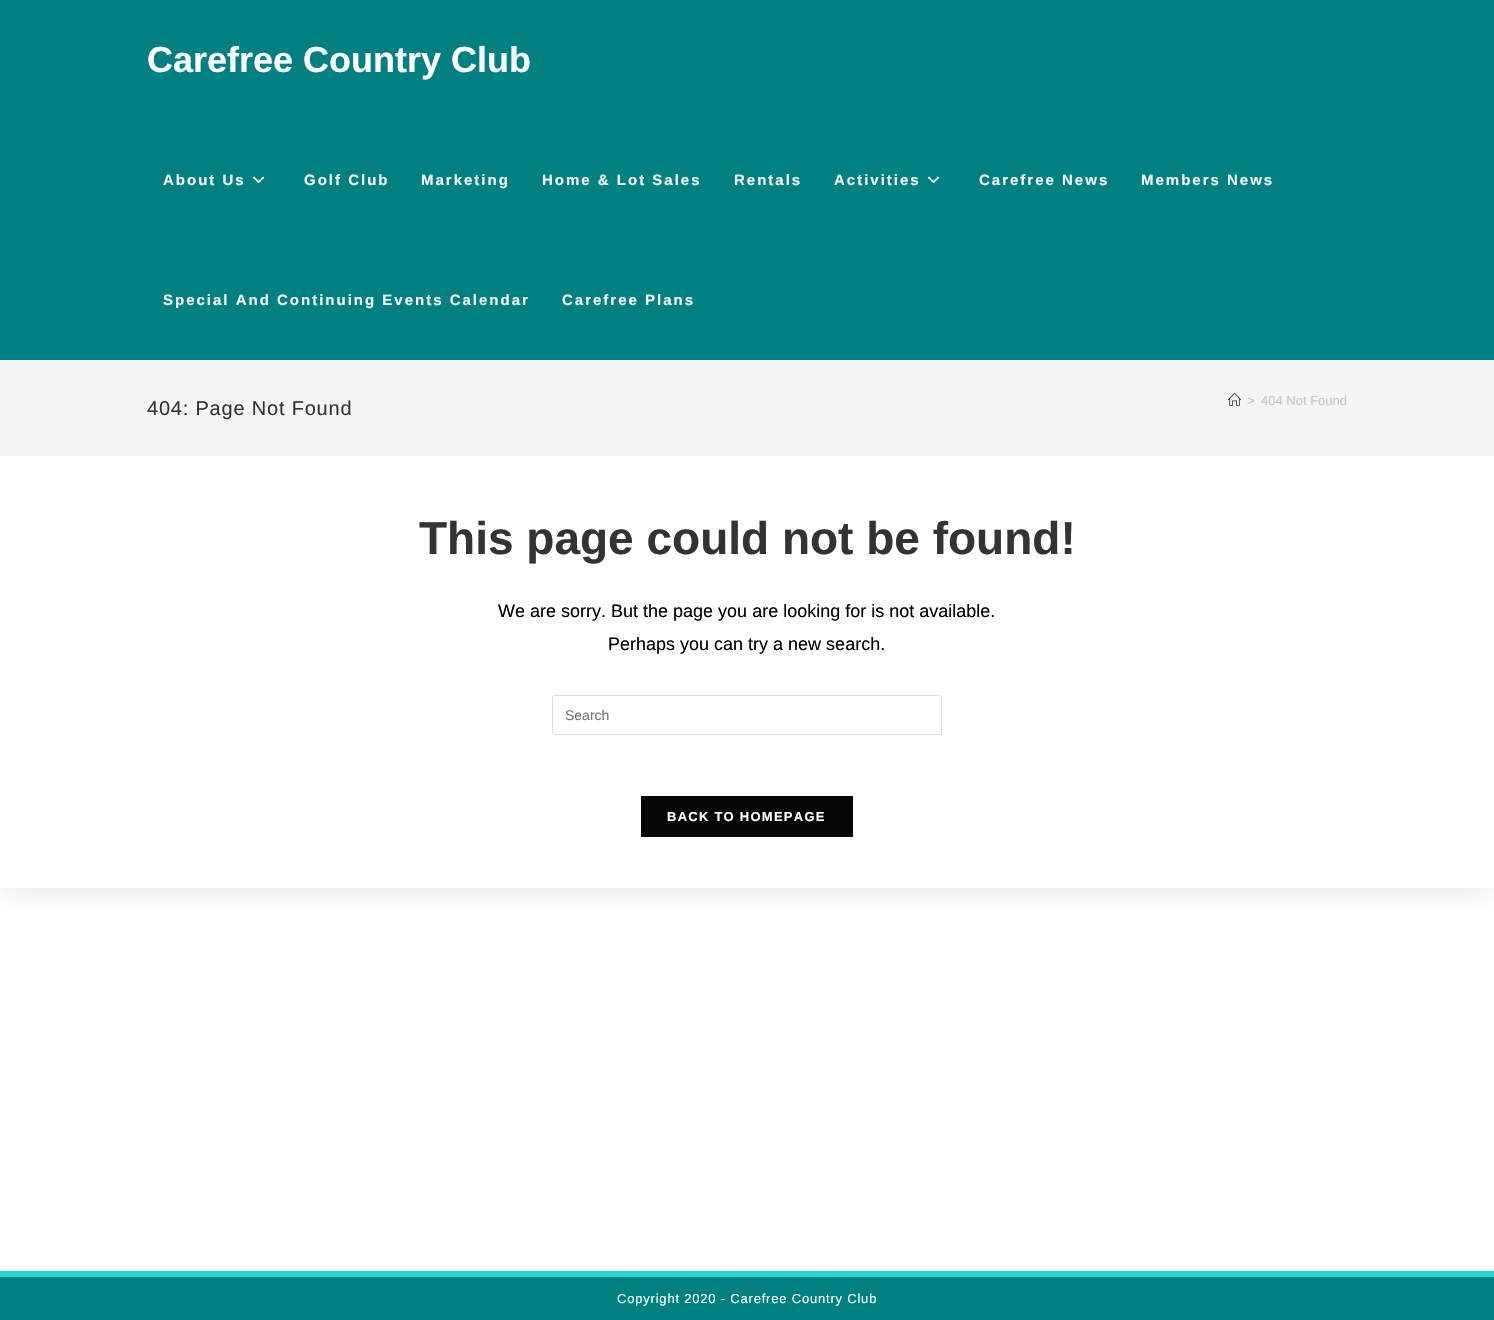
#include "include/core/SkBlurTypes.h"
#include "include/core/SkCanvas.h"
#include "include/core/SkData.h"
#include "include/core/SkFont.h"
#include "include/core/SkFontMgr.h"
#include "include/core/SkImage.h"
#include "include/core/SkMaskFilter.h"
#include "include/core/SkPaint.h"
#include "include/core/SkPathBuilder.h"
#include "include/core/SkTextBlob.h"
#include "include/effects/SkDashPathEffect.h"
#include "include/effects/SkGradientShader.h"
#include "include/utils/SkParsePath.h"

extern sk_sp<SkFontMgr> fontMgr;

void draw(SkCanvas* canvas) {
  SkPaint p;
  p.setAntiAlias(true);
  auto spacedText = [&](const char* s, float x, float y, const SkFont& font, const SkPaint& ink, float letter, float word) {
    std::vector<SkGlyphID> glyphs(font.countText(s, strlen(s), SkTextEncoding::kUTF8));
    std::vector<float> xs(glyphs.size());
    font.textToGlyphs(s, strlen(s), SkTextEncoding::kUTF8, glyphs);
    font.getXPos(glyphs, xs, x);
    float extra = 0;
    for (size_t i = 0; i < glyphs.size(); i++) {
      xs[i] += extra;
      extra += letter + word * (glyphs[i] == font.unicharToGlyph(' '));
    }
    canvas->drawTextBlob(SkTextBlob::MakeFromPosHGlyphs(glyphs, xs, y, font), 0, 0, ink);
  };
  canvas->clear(SK_ColorWHITE);
  canvas->save();
  canvas->clipRect(SkRect::MakeLTRB(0, 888, 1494, 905));
  p.setColor(SkColorSetARGB(26, 0, 0, 0));
  p.setMaskFilter(SkMaskFilter::MakeBlur(kNormal_SkBlurStyle, 20));
  canvas->drawRect(SkRect::MakeLTRB(0, 360, 1494, 888), p);
  p.setMaskFilter(nullptr);
  canvas->restore();
  p.setColor(SkColorSetRGB(0, 128, 129));
  canvas->drawRect(SkRect::MakeLTRB(0, 0, 1494, 360), p);
  canvas->drawImageRect(SkImages::DeferredFromEncodedData(SkData::MakeFromFileName("images/1.png")), SkRect::MakeLTRB(253, 176, 265, 184), SkSamplingOptions());
  canvas->drawImageRect(SkImages::DeferredFromEncodedData(SkData::MakeFromFileName("images/1.png")), SkRect::MakeLTRB(928, 176, 940, 184), SkSamplingOptions());
  p.setColor(SkColorSetRGB(245, 245, 245));
  canvas->drawRect(SkRect::MakeLTRB(0, 360, 1494, 456), p);
  canvas->drawImageRect(SkImages::DeferredFromEncodedData(SkData::MakeFromFileName("images/2.png")), SkRect::MakeLTRB(1228, 392, 1241, 406), SkSamplingOptions());
  p.setStyle(SkPaint::kStroke_Style);
  p.setStrokeWidth(1);
  p.setColor(SkColorSetRGB(221, 221, 221));
  canvas->drawRoundRect(SkRect::MakeLTRB(552.5f, 695.5f, 941.5f, 734.5f), 2.5f, 2.5f, p);
  p.setStyle(SkPaint::kFill_Style);
  p.setColor(SkColorSetRGB(5, 5, 5));
  canvas->drawRect(SkRect::MakeLTRB(641, 796, 853, 837), p);
  p.setColor(SkColorSetRGB(34, 214, 214));
  canvas->drawRect(SkRect::MakeLTRB(0, 1271, 1494, 1277), p);
  p.setColor(SkColorSetRGB(0, 128, 129));
  canvas->drawRect(SkRect::MakeLTRB(0, 1277, 1494, 1320), p);
  SkFont font1(fontMgr->matchFamilyStyle("Liberation Sans", SkFontStyle::Bold()), 36);
  font1.setSubpixel(true);
  p.setColor(SK_ColorWHITE);
  canvas->drawString("Carefree Country Club", 147, 72, font1, p);
  SkFont font2(fontMgr->matchFamilyStyle("Liberation Sans", SkFontStyle::Bold()), 15);
  font2.setSubpixel(true);
  p.setColor(SkColorSetRGB(249, 249, 249));
  spacedText("About Us", 163, 185, font2, p, 2, 0);
  spacedText("Golf Club", 304, 185, font2, p, 2, 0);
  spacedText("Marketing", 421, 185, font2, p, 2, 0);
  spacedText("Home & Lot Sales", 542, 185, font2, p, 2, 0);
  spacedText("Rentals", 734, 185, font2, p, 2, 0);
  spacedText("Activities", 834, 185, font2, p, 2, 0);
  spacedText("Carefree News", 979, 185, font2, p, 2, 0);
  spacedText("Members News", 1141, 185, font2, p, 2, 0);
  spacedText("Special And Continuing Events Calendar", 163, 305, font2, p, 2, 0);
  spacedText("Carefree Plans", 562, 305, font2, p, 2, 0);
  SkFont font3(fontMgr->matchFamilyStyle("Liberation Sans", SkFontStyle::Normal()), 20);
  font3.setSubpixel(true);
  p.setColor(SkColorSetRGB(51, 51, 51));
  spacedText("404: Page Not Found", 147, 415, font3, p, 0.8f, 0);
  SkFont font4(fontMgr->matchFamilyStyle("Liberation Sans", SkFontStyle::Normal()), 13);
  font4.setSubpixel(true);
  p.setColor(SkColorSetRGB(198, 198, 198));
  canvas->drawString(">", 1247, 405, font4, p);
  canvas->drawString("404 Not Found", 1261, 405, font4, p);
  SkFont font5(fontMgr->matchFamilyStyle("Liberation Sans", SkFontStyle::Bold()), 46);
  font5.setSubpixel(true);
  p.setColor(SkColorSetRGB(51, 51, 51));
  canvas->drawString("This page could not be found!", 419, 554, font5, p);
  SkFont font6(fontMgr->matchFamilyStyle("Liberation Sans", SkFontStyle::Normal()), 18);
  font6.setSubpixel(true);
  p.setColor(SK_ColorBLACK);
  canvas->drawString("We are sorry. But the page you are looking for is not available.", 498, 617, font6, p);
  canvas->drawString("Perhaps you can try a new search.", 608, 650, font6, p);
  SkFont font7(fontMgr->matchFamilyStyle("Liberation Sans", SkFontStyle::Normal()), 14);
  font7.setSubpixel(true);
  p.setColor(SkColorSetRGB(117, 117, 117));
  canvas->drawString("Search", 565, 720, font7, p);
  SkFont font8(fontMgr->matchFamilyStyle("Liberation Sans", SkFontStyle::Bold()), 13);
  font8.setSubpixel(true);
  p.setColor(SK_ColorWHITE);
  spacedText("BACK TO HOMEPAGE", 667, 821, font8, p, 1.25f, 0);
  spacedText("Copyright 2020 - Carefree Country Club", 617, 1303, font4, p, 0.8f, 0);
}
